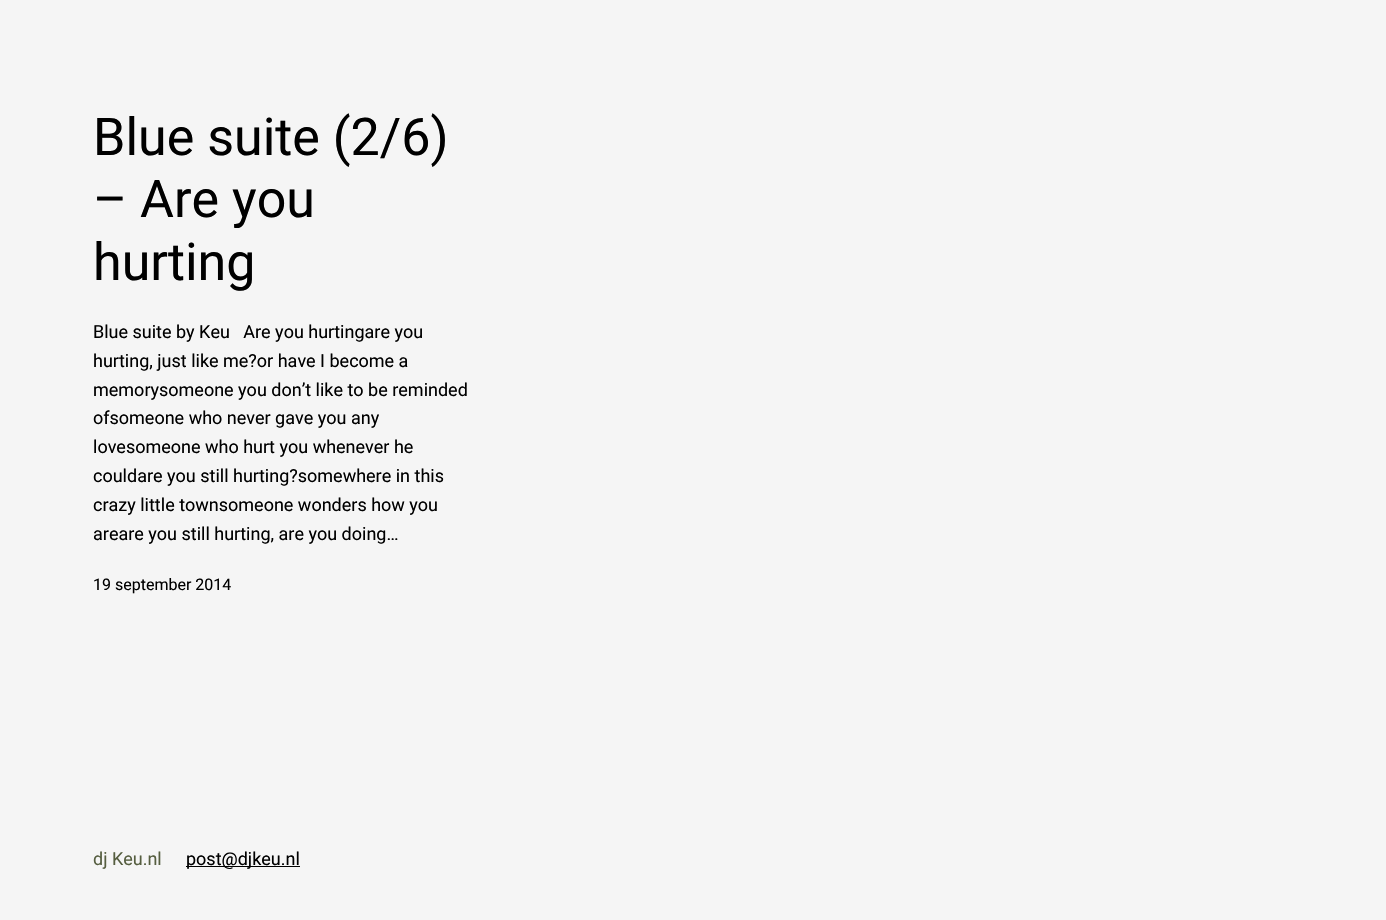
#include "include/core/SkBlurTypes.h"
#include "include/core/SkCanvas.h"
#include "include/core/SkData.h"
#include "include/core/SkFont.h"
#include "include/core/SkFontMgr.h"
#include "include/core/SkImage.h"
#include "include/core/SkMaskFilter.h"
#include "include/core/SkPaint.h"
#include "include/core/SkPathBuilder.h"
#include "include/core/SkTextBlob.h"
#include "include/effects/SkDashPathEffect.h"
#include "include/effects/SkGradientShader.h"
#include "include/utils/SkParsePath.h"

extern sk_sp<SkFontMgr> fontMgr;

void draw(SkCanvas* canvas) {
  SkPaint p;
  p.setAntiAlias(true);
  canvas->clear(SkColorSetRGB(245, 245, 245));
  p.setColor(SK_ColorBLACK);
  canvas->drawRect(SkRect::MakeLTRB(186, 866, 300, 867), p);
  SkFont font1(fontMgr->matchFamilyStyle("Roboto", SkFontStyle::Normal()), 52);
  font1.setSubpixel(true);
  canvas->drawString("Blue suite (2/6)", 93, 155, font1, p);
  canvas->drawString("– Are you", 93, 217, font1, p);
  canvas->drawString("hurting", 93, 280, font1, p);
  SkFont font2(fontMgr->matchFamilyStyle("Roboto", SkFontStyle::Normal()), 18);
  font2.setSubpixel(true);
  canvas->drawString("Blue suite by Keu   Are you hurtingare you", 93, 338, font2, p);
  canvas->drawString("hurting, just like me?or have I become a", 93, 367, font2, p);
  canvas->drawString("memorysomeone you don’t like to be reminded", 93, 396, font2, p);
  canvas->drawString("ofsomeone who never gave you any", 93, 424, font2, p);
  canvas->drawString("lovesomeone who hurt you whenever he", 93, 453, font2, p);
  canvas->drawString("couldare you still hurting?somewhere in this", 93, 482, font2, p);
  canvas->drawString("crazy little townsomeone wonders how you", 93, 511, font2, p);
  canvas->drawString("areare you still hurting, are you doing…", 93, 540, font2, p);
  SkFont font3(fontMgr->matchFamilyStyle("Roboto", SkFontStyle::Normal()), 16);
  font3.setSubpixel(true);
  canvas->drawString("19 september 2014", 93, 590, font3, p);
  p.setColor(SkColorSetRGB(86, 94, 64));
  canvas->drawString("dj Keu.nl", 93, 865, font2, p);
  p.setColor(SK_ColorBLACK);
  canvas->drawString("post@djkeu.nl", 186, 865, font2, p);
}
